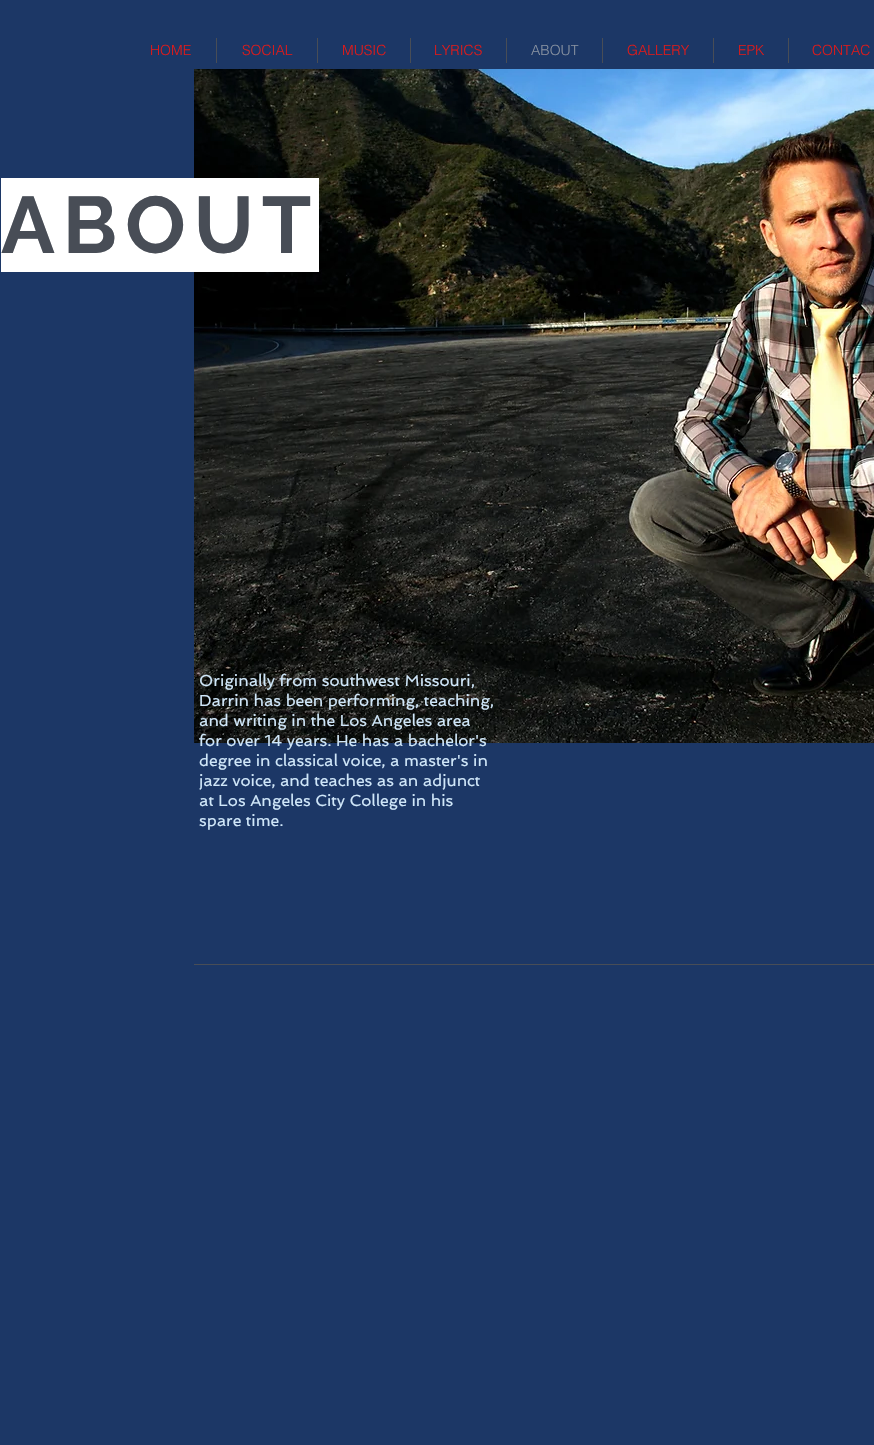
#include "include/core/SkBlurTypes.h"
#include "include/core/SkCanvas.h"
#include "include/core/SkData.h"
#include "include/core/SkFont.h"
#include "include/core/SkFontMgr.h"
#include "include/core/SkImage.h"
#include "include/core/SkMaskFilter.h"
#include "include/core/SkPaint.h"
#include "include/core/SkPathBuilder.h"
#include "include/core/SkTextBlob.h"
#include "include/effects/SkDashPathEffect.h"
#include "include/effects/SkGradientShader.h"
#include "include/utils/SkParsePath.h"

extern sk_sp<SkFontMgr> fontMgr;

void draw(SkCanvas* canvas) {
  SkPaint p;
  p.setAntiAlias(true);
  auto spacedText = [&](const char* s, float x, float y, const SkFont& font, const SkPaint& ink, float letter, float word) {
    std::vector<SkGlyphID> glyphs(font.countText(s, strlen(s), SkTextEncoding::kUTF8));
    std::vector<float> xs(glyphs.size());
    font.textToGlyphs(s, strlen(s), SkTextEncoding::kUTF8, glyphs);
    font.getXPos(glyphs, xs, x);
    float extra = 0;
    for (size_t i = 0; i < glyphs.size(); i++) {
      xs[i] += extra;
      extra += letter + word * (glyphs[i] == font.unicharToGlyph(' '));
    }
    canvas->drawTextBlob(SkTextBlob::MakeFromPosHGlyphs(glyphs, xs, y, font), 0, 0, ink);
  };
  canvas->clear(SkColorSetRGB(28, 55, 102));
  p.setColor(SkColorSetRGB(72, 77, 86));
  canvas->drawRect(SkRect::MakeLTRB(216, 38, 217, 63), p);
  canvas->drawRect(SkRect::MakeLTRB(317, 38, 318, 63), p);
  canvas->drawRect(SkRect::MakeLTRB(410, 38, 411, 63), p);
  canvas->drawRect(SkRect::MakeLTRB(506, 38, 507, 63), p);
  canvas->drawRect(SkRect::MakeLTRB(602, 38, 603, 63), p);
  canvas->drawRect(SkRect::MakeLTRB(713, 38, 714, 63), p);
  canvas->drawRect(SkRect::MakeLTRB(788, 38, 789, 63), p);
  canvas->drawImageRect(SkImages::DeferredFromEncodedData(SkData::MakeFromFileName("images/1.png")), SkRect::MakeLTRB(194, 69, 874, 743), SkSamplingOptions());
  p.setColor(SK_ColorWHITE);
  canvas->drawRect(SkRect::MakeLTRB(1, 178, 319, 272), p);
  p.setColor(SkColorSetRGB(72, 77, 86));
  canvas->drawRect(SkRect::MakeLTRB(194, 964, 874, 965), p);
  SkFont font1(fontMgr->matchFamilyStyle("helvetica", SkFontStyle(300, SkFontStyle::kNormal_Width, SkFontStyle::kUpright_Slant)), 14);
  font1.setSubpixel(true);
  p.setColor(SkColorSetRGB(221, 26, 26));
  canvas->drawString("HOME", 150, 55, font1, p);
  canvas->drawString("SOCIAL", 242, 55, font1, p);
  canvas->drawString("MUSIC", 342, 55, font1, p);
  canvas->drawString("LYRICS", 434, 55, font1, p);
  p.setColor(SkColorSetRGB(136, 146, 161));
  canvas->drawString("ABOUT", 531, 55, font1, p);
  p.setColor(SkColorSetRGB(221, 26, 26));
  canvas->drawString("GALLERY", 627, 55, font1, p);
  canvas->drawString("EPK", 738, 55, font1, p);
  canvas->drawString("CONTAC", 812, 55, font1, p);
  SkFont font2(fontMgr->matchFamilyStyle("Raleway", SkFontStyle::Bold()), 80);
  font2.setSubpixel(true);
  p.setColor(SkColorSetRGB(72, 77, 86));
  spacedText("ABOUT", 1, 253, font2, p, 8, 0);
  SkFont font3(fontMgr->matchFamilyStyle("Spinnaker", SkFontStyle::Normal()), 16);
  font3.setSubpixel(true);
  p.setColor(SkColorSetRGB(208, 231, 249));
  canvas->drawString("Originally from southwest Missouri,", 199, 686, font3, p);
  canvas->drawString("Darrin has been performing, teaching,", 199, 706, font3, p);
  canvas->drawString("and writing in the Los Angeles area", 199, 726, font3, p);
  canvas->drawString("for over 14 years. He has a bachelor's", 199, 746, font3, p);
  canvas->drawString("degree in classical voice, a master's in", 199, 766, font3, p);
  canvas->drawString("jazz voice, and teaches as an adjunct", 199, 786, font3, p);
  canvas->drawString("at Los Angeles City College in his", 199, 806, font3, p);
  canvas->drawString("spare time.", 199, 826, font3, p);
}
